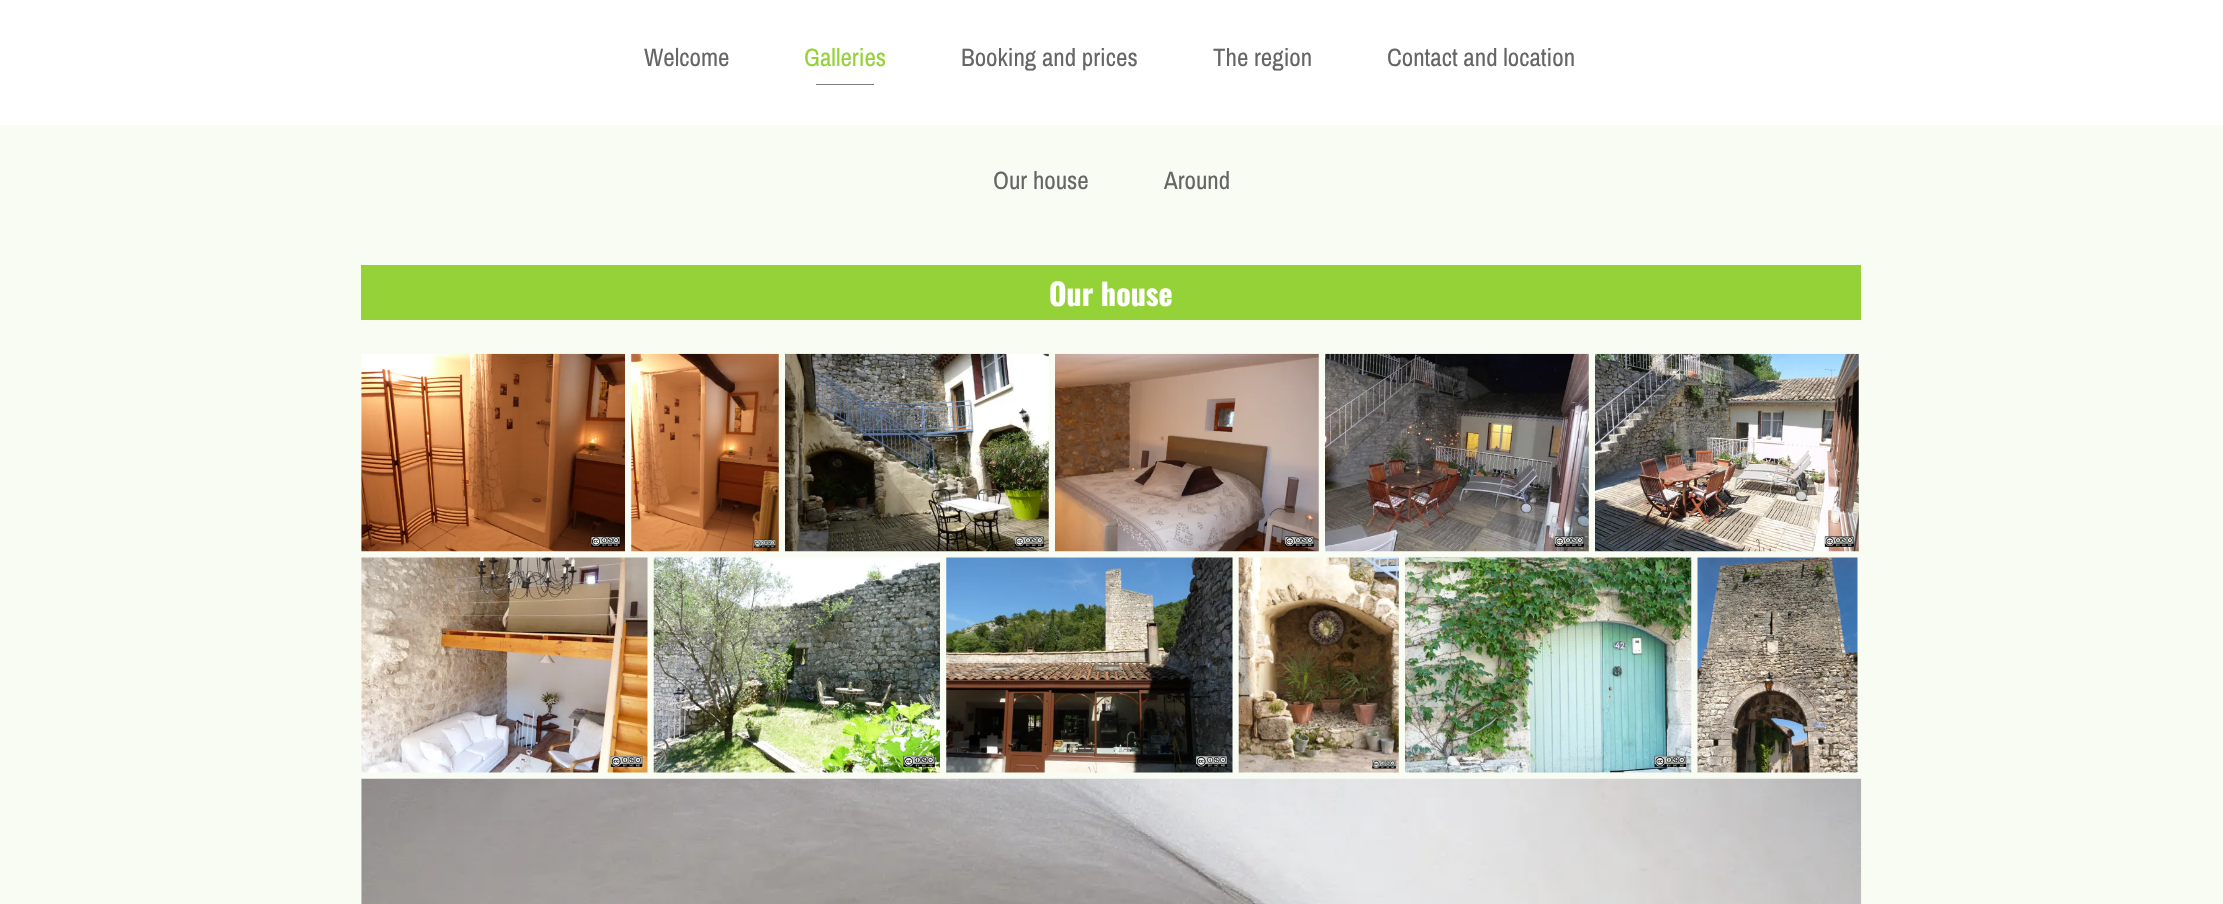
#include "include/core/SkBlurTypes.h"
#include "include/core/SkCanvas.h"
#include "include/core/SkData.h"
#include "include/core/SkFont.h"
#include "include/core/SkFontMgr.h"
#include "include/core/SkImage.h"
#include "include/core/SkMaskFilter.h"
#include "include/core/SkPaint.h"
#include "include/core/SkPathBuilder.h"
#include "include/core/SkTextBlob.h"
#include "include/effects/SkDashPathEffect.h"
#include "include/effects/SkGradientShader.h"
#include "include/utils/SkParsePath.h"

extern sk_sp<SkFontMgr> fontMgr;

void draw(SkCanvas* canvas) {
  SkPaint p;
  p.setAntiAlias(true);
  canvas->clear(SkColorSetRGB(248, 252, 243));
  p.setColor(SK_ColorWHITE);
  canvas->drawRect(SkRect::MakeLTRB(0, 0, 2223, 125), p);
  p.setColor(SkColorSetRGB(128, 128, 128));
  canvas->drawRect(SkRect::MakeLTRB(816, 84, 874, 85), p);
  p.setColor(SkColorSetRGB(148, 210, 55));
  canvas->drawRect(SkRect::MakeLTRB(361, 265, 1861, 320), p);
  canvas->drawImageRect(SkImages::DeferredFromEncodedData(SkData::MakeFromFileName("images/1.png")), SkRect::MakeLTRB(361, 353, 625, 552), SkSamplingOptions());
  canvas->drawImageRect(SkImages::DeferredFromEncodedData(SkData::MakeFromFileName("images/2.png")), SkRect::MakeLTRB(631, 353, 779, 552), SkSamplingOptions());
  canvas->drawImageRect(SkImages::DeferredFromEncodedData(SkData::MakeFromFileName("images/3.png")), SkRect::MakeLTRB(785, 353, 1049, 552), SkSamplingOptions());
  canvas->drawImageRect(SkImages::DeferredFromEncodedData(SkData::MakeFromFileName("images/4.png")), SkRect::MakeLTRB(1055, 353, 1319, 552), SkSamplingOptions());
  canvas->drawImageRect(SkImages::DeferredFromEncodedData(SkData::MakeFromFileName("images/5.png")), SkRect::MakeLTRB(1325, 353, 1589, 552), SkSamplingOptions());
  canvas->drawImageRect(SkImages::DeferredFromEncodedData(SkData::MakeFromFileName("images/6.png")), SkRect::MakeLTRB(1595, 353, 1859, 552), SkSamplingOptions());
  canvas->drawImageRect(SkImages::DeferredFromEncodedData(SkData::MakeFromFileName("images/7.png")), SkRect::MakeLTRB(361, 557, 648, 773), SkSamplingOptions());
  canvas->drawImageRect(SkImages::DeferredFromEncodedData(SkData::MakeFromFileName("images/8.png")), SkRect::MakeLTRB(653, 557, 940, 773), SkSamplingOptions());
  canvas->drawImageRect(SkImages::DeferredFromEncodedData(SkData::MakeFromFileName("images/9.png")), SkRect::MakeLTRB(946, 557, 1233, 773), SkSamplingOptions());
  canvas->drawImageRect(SkImages::DeferredFromEncodedData(SkData::MakeFromFileName("images/10.png")), SkRect::MakeLTRB(1238, 557, 1399, 773), SkSamplingOptions());
  canvas->drawImageRect(SkImages::DeferredFromEncodedData(SkData::MakeFromFileName("images/11.png")), SkRect::MakeLTRB(1405, 557, 1692, 773), SkSamplingOptions());
  canvas->drawImageRect(SkImages::DeferredFromEncodedData(SkData::MakeFromFileName("images/12.png")), SkRect::MakeLTRB(1697, 557, 1858, 773), SkSamplingOptions());
  canvas->drawImageRect(SkImages::DeferredFromEncodedData(SkData::MakeFromFileName("images/13.png")), SkRect::MakeLTRB(361, 778, 1862, 904), SkSamplingOptions());
  SkFont font1(fontMgr->matchFamilyStyle("Archivo Narrow", SkFontStyle::Normal()), 25);
  font1.setSubpixel(true);
  p.setColor(SkColorSetRGB(102, 102, 102));
  canvas->drawString("Welcome", 644, 66, font1, p);
  p.setColor(SkColorSetRGB(148, 210, 55));
  canvas->drawString("Galleries", 804, 66, font1, p);
  p.setColor(SkColorSetRGB(102, 102, 102));
  canvas->drawString("Booking and prices", 961, 66, font1, p);
  canvas->drawString("The region", 1213, 66, font1, p);
  canvas->drawString("Contact and location", 1387, 66, font1, p);
  canvas->drawString("Our house", 993, 189, font1, p);
  canvas->drawString("Around", 1164, 189, font1, p);
  SkFont font2(fontMgr->matchFamilyStyle("Oswald", SkFontStyle::Bold()), 30);
  font2.setSubpixel(true);
  p.setColor(SK_ColorWHITE);
  canvas->drawString("Our house", 1049, 306, font2, p);
}
